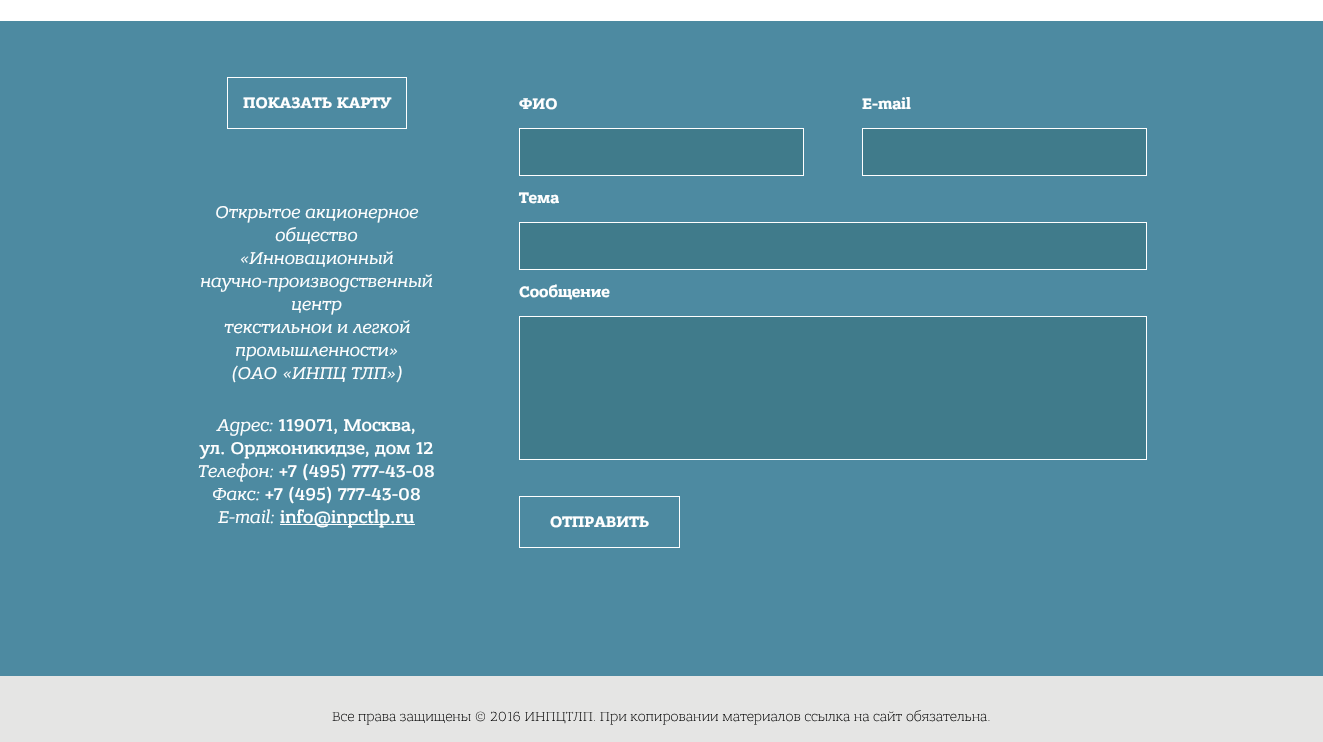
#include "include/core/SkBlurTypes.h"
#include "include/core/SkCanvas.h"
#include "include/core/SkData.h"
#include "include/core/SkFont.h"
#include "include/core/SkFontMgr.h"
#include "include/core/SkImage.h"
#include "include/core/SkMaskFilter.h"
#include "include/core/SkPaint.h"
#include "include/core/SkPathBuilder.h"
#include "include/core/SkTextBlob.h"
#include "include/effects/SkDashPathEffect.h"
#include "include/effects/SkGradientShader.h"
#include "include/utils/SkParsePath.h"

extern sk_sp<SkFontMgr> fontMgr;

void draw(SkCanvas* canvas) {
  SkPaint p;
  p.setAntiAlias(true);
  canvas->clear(SK_ColorWHITE);
  p.setColor(SkColorSetRGB(77, 138, 161));
  canvas->drawRect(SkRect::MakeLTRB(0, 21, 1323, 676), p);
  p.setStyle(SkPaint::kStroke_Style);
  p.setStrokeWidth(1);
  p.setColor(SK_ColorWHITE);
  canvas->drawRect(SkRect::MakeLTRB(227.5f, 77.5f, 406.5f, 128.5f), p);
  p.setStyle(SkPaint::kFill_Style);
  canvas->drawRect(SkRect::MakeLTRB(280, 524, 415, 525), p);
  p.setColor(SkColorSetRGB(64, 123, 139));
  canvas->drawRect(SkRect::MakeLTRB(519.5f, 128.5f, 803.5f, 175.5f), p);
  p.setStyle(SkPaint::kStroke_Style);
  p.setColor(SK_ColorWHITE);
  canvas->drawRect(SkRect::MakeLTRB(519.5f, 128.5f, 803.5f, 175.5f), p);
  p.setStyle(SkPaint::kFill_Style);
  p.setColor(SkColorSetRGB(64, 123, 139));
  canvas->drawRect(SkRect::MakeLTRB(862.5f, 128.5f, 1146.5f, 175.5f), p);
  p.setStyle(SkPaint::kStroke_Style);
  p.setColor(SK_ColorWHITE);
  canvas->drawRect(SkRect::MakeLTRB(862.5f, 128.5f, 1146.5f, 175.5f), p);
  p.setStyle(SkPaint::kFill_Style);
  p.setColor(SkColorSetRGB(64, 123, 139));
  canvas->drawRect(SkRect::MakeLTRB(519.5f, 222.5f, 1146.5f, 269.5f), p);
  p.setStyle(SkPaint::kStroke_Style);
  p.setColor(SK_ColorWHITE);
  canvas->drawRect(SkRect::MakeLTRB(519.5f, 222.5f, 1146.5f, 269.5f), p);
  p.setStyle(SkPaint::kFill_Style);
  p.setColor(SkColorSetRGB(64, 123, 139));
  canvas->drawRect(SkRect::MakeLTRB(519.5f, 316.5f, 1146.5f, 459.5f), p);
  p.setStyle(SkPaint::kStroke_Style);
  p.setColor(SK_ColorWHITE);
  canvas->drawRect(SkRect::MakeLTRB(519.5f, 316.5f, 1146.5f, 459.5f), p);
  canvas->drawRect(SkRect::MakeLTRB(519.5f, 496.5f, 679.5f, 547.5f), p);
  p.setStyle(SkPaint::kFill_Style);
  p.setColor(SkColorSetRGB(229, 229, 228));
  canvas->drawRect(SkRect::MakeLTRB(0, 676, 1323, 742), p);
  SkFont font1(fontMgr->matchFamilyStyle("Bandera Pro", SkFontStyle::Bold()), 16);
  font1.setSubpixel(true);
  p.setColor(SK_ColorWHITE);
  canvas->drawString("ПОКАЗАТЬ КАРТУ", 243, 108, font1, p);
  SkFont font2(fontMgr->matchFamilyStyle("Bandera Pro", SkFontStyle::Italic()), 18);
  font2.setSubpixel(true);
  canvas->drawString("Открытое акционерное", 215, 218, font2, p);
  canvas->drawString("общество", 275, 241, font2, p);
  canvas->drawString("«Инновационный", 239, 264, font2, p);
  canvas->drawString("научно-производственный", 200, 287, font2, p);
  canvas->drawString("центр", 291, 310, font2, p);
  canvas->drawString("текстильнои и легкой", 224, 333, font2, p);
  canvas->drawString("промышленности»", 235, 356, font2, p);
  canvas->drawString("(ОАО «ИНПЦ ТЛП»)", 231, 379, font2, p);
  canvas->drawString("Адрес:", 217, 431, font2, p);
  SkFont font3(fontMgr->matchFamilyStyle("Bandera Pro", SkFontStyle(500, SkFontStyle::kNormal_Width, SkFontStyle::kUpright_Slant)), 18);
  font3.setSubpixel(true);
  canvas->drawString("119071, Москва,", 278, 431, font3, p);
  canvas->drawString("ул. Орджоникидзе, дом 12", 200, 454, font3, p);
  canvas->drawString("Телефон:", 198, 477, font2, p);
  canvas->drawString("+7 (495) 777-43-08", 279, 477, font3, p);
  canvas->drawString("Факс:", 212, 500, font2, p);
  canvas->drawString("+7 (495) 777-43-08", 265, 500, font3, p);
  canvas->drawString("E-mail:", 218, 523, font2, p);
  canvas->drawString("info@inpctlp.ru", 280, 523, font3, p);
  canvas->drawString("ФИО", 519, 109, font1, p);
  canvas->drawString("E-mail", 862, 109, font1, p);
  canvas->drawString("Тема", 519, 203, font1, p);
  canvas->drawString("Сообщение", 519, 297, font1, p);
  canvas->drawString("ОТПРАВИТЬ", 550, 527, font1, p);
  SkFont font4(fontMgr->matchFamilyStyle("Bandera Pro", SkFontStyle(300, SkFontStyle::kNormal_Width, SkFontStyle::kUpright_Slant)), 14);
  font4.setSubpixel(true);
  p.setColor(SK_ColorBLACK);
  canvas->drawString("Все права защищены © 2016 ИНПЦТЛП. При копировании материалов ссылка на сайт обязательна.", 332, 721, font4, p);
}
